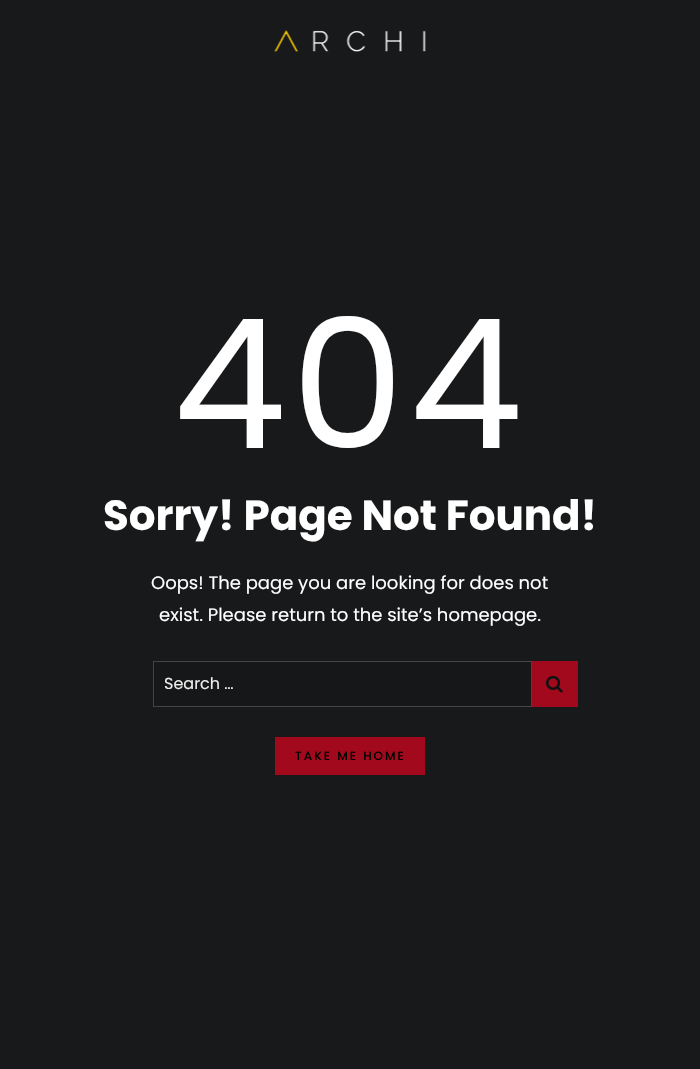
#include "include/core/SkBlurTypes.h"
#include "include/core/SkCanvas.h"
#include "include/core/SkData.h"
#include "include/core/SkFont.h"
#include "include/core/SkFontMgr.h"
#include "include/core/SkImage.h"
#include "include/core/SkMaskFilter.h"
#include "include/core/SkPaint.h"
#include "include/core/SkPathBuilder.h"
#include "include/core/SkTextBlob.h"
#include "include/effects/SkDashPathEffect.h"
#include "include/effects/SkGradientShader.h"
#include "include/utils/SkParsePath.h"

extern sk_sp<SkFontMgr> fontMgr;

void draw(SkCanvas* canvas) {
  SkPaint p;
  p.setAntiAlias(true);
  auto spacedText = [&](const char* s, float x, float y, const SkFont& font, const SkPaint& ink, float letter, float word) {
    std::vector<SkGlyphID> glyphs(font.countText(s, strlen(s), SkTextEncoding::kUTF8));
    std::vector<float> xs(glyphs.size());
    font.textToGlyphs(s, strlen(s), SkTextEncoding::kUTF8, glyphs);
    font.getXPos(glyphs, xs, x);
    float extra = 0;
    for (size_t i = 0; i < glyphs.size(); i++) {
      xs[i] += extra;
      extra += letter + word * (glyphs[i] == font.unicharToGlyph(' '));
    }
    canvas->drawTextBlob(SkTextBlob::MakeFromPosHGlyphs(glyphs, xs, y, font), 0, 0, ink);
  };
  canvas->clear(SkColorSetRGB(24, 25, 27));
  canvas->drawImageRect(SkImages::DeferredFromEncodedData(SkData::MakeFromFileName("images/1.png")), SkRect::MakeLTRB(274, 30, 426, 52), SkSamplingOptions());
  p.setColor(SkColorSetRGB(22, 23, 24));
  canvas->drawRect(SkRect::MakeLTRB(153.5f, 661.5f, 531.5f, 706.5f), p);
  p.setStyle(SkPaint::kStroke_Style);
  p.setStrokeWidth(1);
  p.setColor(SkColorSetRGB(69, 69, 70));
  canvas->drawRect(SkRect::MakeLTRB(153.5f, 661.5f, 531.5f, 706.5f), p);
  p.setStyle(SkPaint::kFill_Style);
  p.setColor(SkColorSetRGB(162, 9, 29));
  canvas->drawRect(SkRect::MakeLTRB(532, 661, 578, 707), p);
  canvas->drawImageRect(SkImages::DeferredFromEncodedData(SkData::MakeFromFileName("images/2.png")), SkRect::MakeLTRB(546, 675, 563, 693), SkSamplingOptions());
  canvas->drawRect(SkRect::MakeLTRB(275, 737, 425, 775), p);
  SkFont font1(fontMgr->matchFamilyStyle("Poppins", SkFontStyle::Normal()), 180);
  font1.setSubpixel(true);
  p.setColor(SK_ColorWHITE);
  spacedText("404", 173, 448, font1, p, 5, 0);
  SkFont font2(fontMgr->matchFamilyStyle("Poppins", SkFontStyle::Bold()), 42);
  font2.setSubpixel(true);
  canvas->drawString("Sorry! Page Not Found!", 103, 530, font2, p);
  SkFont font3(fontMgr->matchFamilyStyle("Poppins", SkFontStyle::Normal()), 18);
  font3.setSubpixel(true);
  canvas->drawString("Oops! The page you are looking for does not", 151, 589, font3, p);
  canvas->drawString("exist. Please return to the site’s homepage.", 159, 621, font3, p);
  SkFont font4(fontMgr->matchFamilyStyle("Poppins", SkFontStyle::Normal()), 16);
  font4.setSubpixel(true);
  p.setColor(SkColorSetRGB(238, 238, 238));
  canvas->drawString("Search …", 164, 689, font4, p);
  SkFont font5(fontMgr->matchFamilyStyle("Poppins", SkFontStyle(500, SkFontStyle::kNormal_Width, SkFontStyle::kUpright_Slant)), 12);
  font5.setSubpixel(true);
  p.setColor(SK_ColorBLACK);
  spacedText("TAKE ME HOME", 295, 760, font5, p, 2, 0);
}
